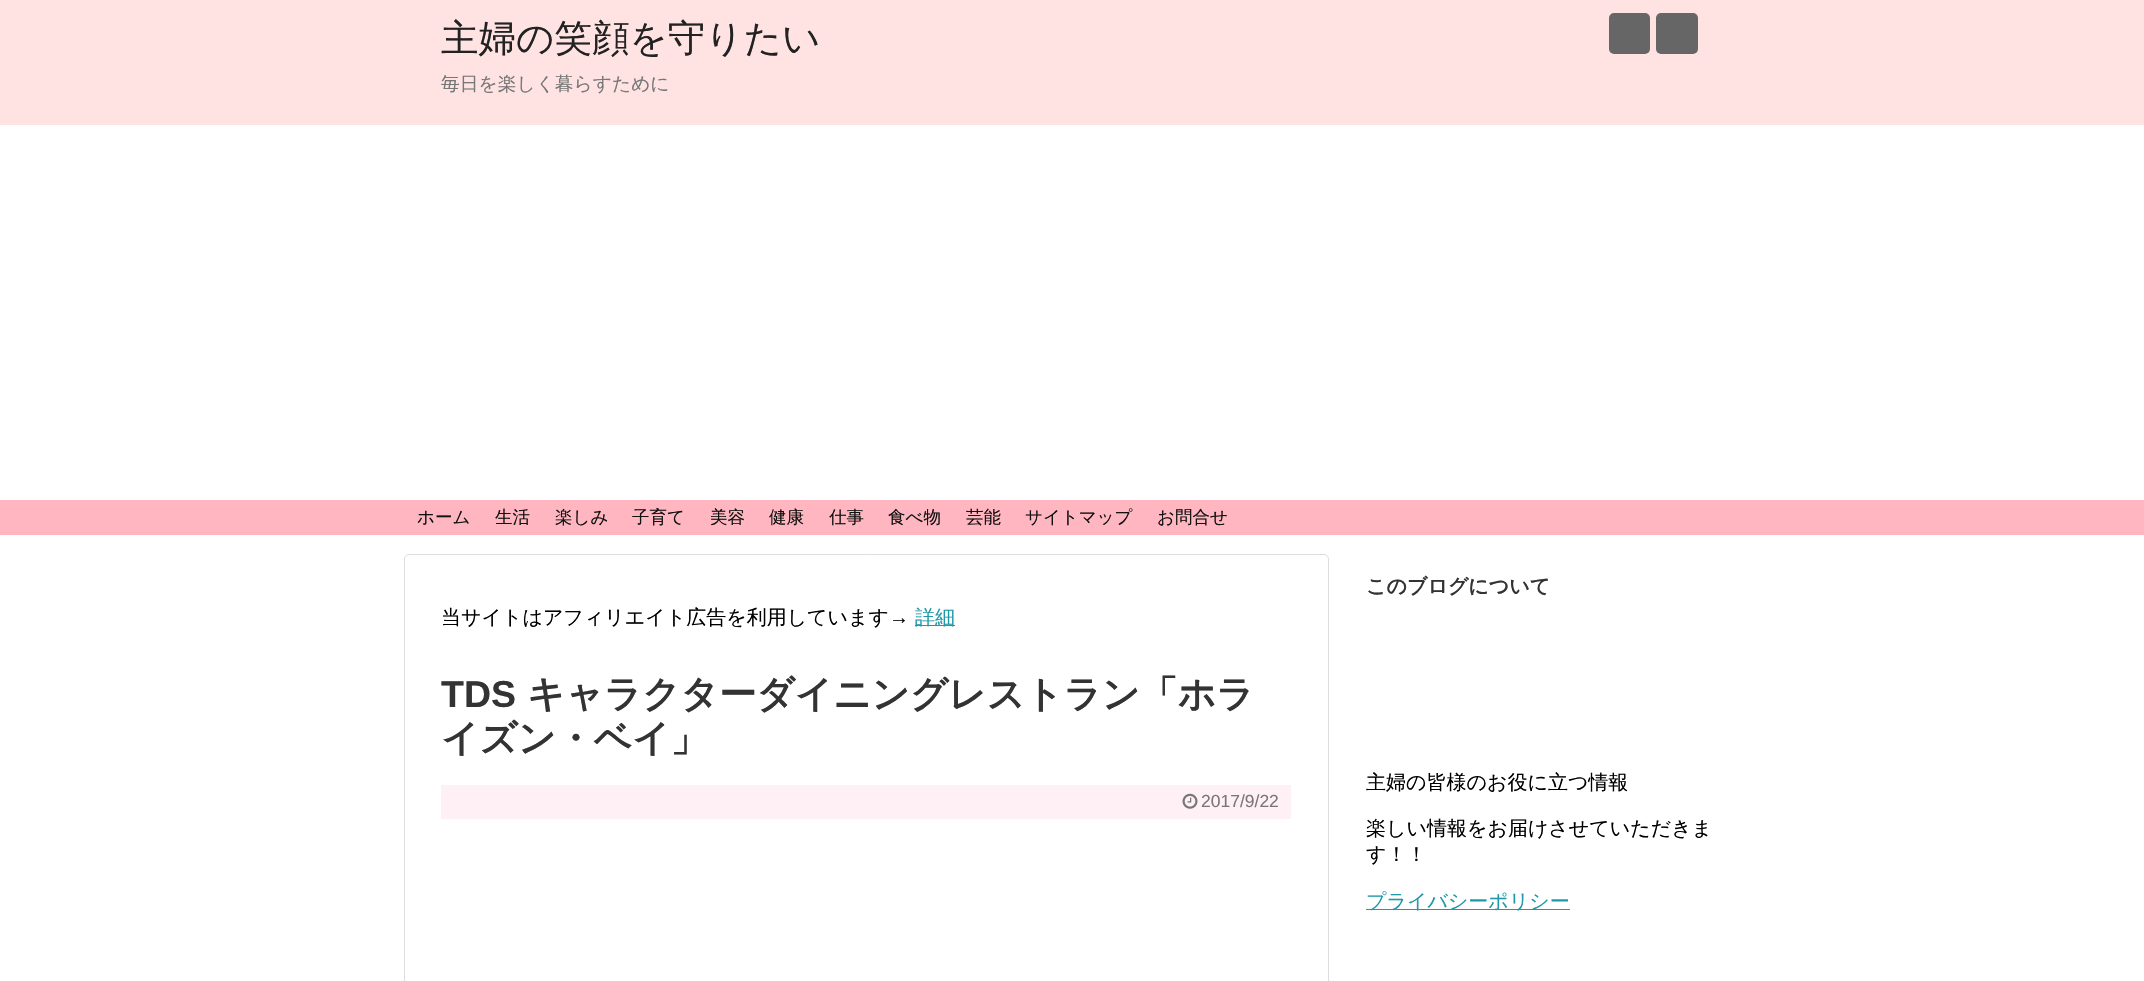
#include "include/core/SkBlurTypes.h"
#include "include/core/SkCanvas.h"
#include "include/core/SkData.h"
#include "include/core/SkFont.h"
#include "include/core/SkFontMgr.h"
#include "include/core/SkImage.h"
#include "include/core/SkMaskFilter.h"
#include "include/core/SkPaint.h"
#include "include/core/SkPathBuilder.h"
#include "include/core/SkTextBlob.h"
#include "include/effects/SkDashPathEffect.h"
#include "include/effects/SkGradientShader.h"
#include "include/utils/SkParsePath.h"

extern sk_sp<SkFontMgr> fontMgr;

void draw(SkCanvas* canvas) {
  SkPaint p;
  p.setAntiAlias(true);
  canvas->clear(SK_ColorWHITE);
  p.setColor(SkColorSetRGB(255, 226, 226));
  canvas->drawRect(SkRect::MakeLTRB(0, 0, 2144, 125), p);
  p.setColor(SkColorSetRGB(102, 102, 102));
  canvas->drawRoundRect(SkRect::MakeLTRB(1609, 13, 1650, 54), 5, 5, p);
  canvas->drawRoundRect(SkRect::MakeLTRB(1656, 13, 1698, 54), 5, 5, p);
  p.setColor(SkColorSetRGB(255, 182, 193));
  canvas->drawRect(SkRect::MakeLTRB(0, 500, 2144, 535), p);
  p.setStyle(SkPaint::kStroke_Style);
  p.setStrokeWidth(1);
  p.setColor(SkColorSetRGB(221, 221, 221));
  canvas->drawRoundRect(SkRect::MakeLTRB(404.5f, 554.5f, 1328.5f, 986.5f), 4.5f, 4.5f, p);
  p.setStyle(SkPaint::kFill_Style);
  p.setColor(SkColorSetRGB(32, 152, 168));
  canvas->drawRect(SkRect::MakeLTRB(915, 625, 955, 626), p);
  p.setColor(SkColorSetRGB(255, 240, 245));
  canvas->drawRect(SkRect::MakeLTRB(441, 785, 1291, 819), p);
  canvas->drawImageRect(SkImages::DeferredFromEncodedData(SkData::MakeFromFileName("images/1.png")), SkRect::MakeLTRB(1182, 793, 1198, 809), SkSamplingOptions());
  p.setColor(SkColorSetRGB(32, 152, 168));
  canvas->drawRect(SkRect::MakeLTRB(1366, 909, 1570, 910), p);
  SkFont font1(fontMgr->matchFamilyStyle("WenQuanYi Zen Hei", SkFontStyle(500, SkFontStyle::kNormal_Width, SkFontStyle::kUpright_Slant)), 37.5f);
  font1.setSubpixel(true);
  p.setColor(SkColorSetRGB(34, 34, 34));
  canvas->drawString("主婦の笑顔を守りたい", 441, 51, font1, p);
  SkFont font2(fontMgr->matchFamilyStyle("WenQuanYi Zen Hei", SkFontStyle(500, SkFontStyle::kNormal_Width, SkFontStyle::kUpright_Slant)), 18.75f);
  font2.setSubpixel(true);
  p.setColor(SkColorSetRGB(119, 119, 119));
  canvas->drawString("毎日を楽しく暮らすために", 441, 90, font2, p);
  SkFont font3(fontMgr->matchFamilyStyle("WenQuanYi Zen Hei", SkFontStyle(500, SkFontStyle::kNormal_Width, SkFontStyle::kUpright_Slant)), 17.5f);
  font3.setSubpixel(true);
  p.setColor(SkColorSetRGB(17, 17, 17));
  canvas->drawString("ホーム", 417, 523, font3, p);
  canvas->drawString("生活", 495, 523, font3, p);
  canvas->drawString("楽しみ", 555, 523, font3, p);
  canvas->drawString("子育て", 632, 523, font3, p);
  canvas->drawString("美容", 710, 523, font3, p);
  canvas->drawString("健康", 769, 523, font3, p);
  canvas->drawString("仕事", 829, 523, font3, p);
  canvas->drawString("食べ物", 888, 523, font3, p);
  canvas->drawString("芸能", 966, 523, font3, p);
  canvas->drawString("サイトマップ", 1025, 523, font3, p);
  canvas->drawString("お問合せ", 1157, 523, font3, p);
  SkFont font4(fontMgr->matchFamilyStyle("WenQuanYi Zen Hei", SkFontStyle(500, SkFontStyle::kNormal_Width, SkFontStyle::kUpright_Slant)), 20);
  font4.setSubpixel(true);
  p.setColor(SK_ColorBLACK);
  canvas->drawString("当サイトはアフィリエイト広告を利用しています", 441, 624, font4, p);
  SkFont font5(fontMgr->matchFamilyStyle("Liberation Sans", SkFontStyle::Normal()), 20);
  font5.setSubpixel(true);
  canvas->drawString("→", 889, 624, font5, p);
  p.setColor(SkColorSetRGB(32, 152, 168));
  canvas->drawString("詳細", 915, 624, font4, p);
  SkFont font6(fontMgr->matchFamilyStyle("Liberation Sans", SkFontStyle::Bold()), 37.5f);
  font6.setSubpixel(true);
  p.setColor(SkColorSetRGB(51, 51, 51));
  canvas->drawString("TDS", 441, 707, font6, p);
  SkFont font7(fontMgr->matchFamilyStyle("WenQuanYi Zen Hei", SkFontStyle::Bold()), 37.5f);
  font7.setSubpixel(true);
  canvas->drawString("キャラクターダイニングレストラン「ホラ", 527, 707, font7, p);
  canvas->drawString("イズン・ベイ」", 441, 751, font7, p);
  SkFont font8(fontMgr->matchFamilyStyle("Liberation Sans", SkFontStyle::Normal()), 17.5f);
  font8.setSubpixel(true);
  p.setColor(SkColorSetRGB(119, 119, 119));
  canvas->drawString("2017/9/22", 1201, 807, font8, p);
  SkFont font9(fontMgr->matchFamilyStyle("WenQuanYi Zen Hei", SkFontStyle::Bold()), 20);
  font9.setSubpixel(true);
  p.setColor(SkColorSetRGB(51, 51, 51));
  canvas->drawString("このブログについて", 1366, 593, font9, p);
  p.setColor(SK_ColorBLACK);
  canvas->drawString("主婦の皆様のお役に立つ情報", 1366, 789, font4, p);
  canvas->drawString("楽しい情報をお届けさせていただきま", 1366, 835, font4, p);
  canvas->drawString("す！！", 1366, 861, font4, p);
  p.setColor(SkColorSetRGB(32, 152, 168));
  canvas->drawString("プライバシーポリシー", 1366, 908, font4, p);
}
